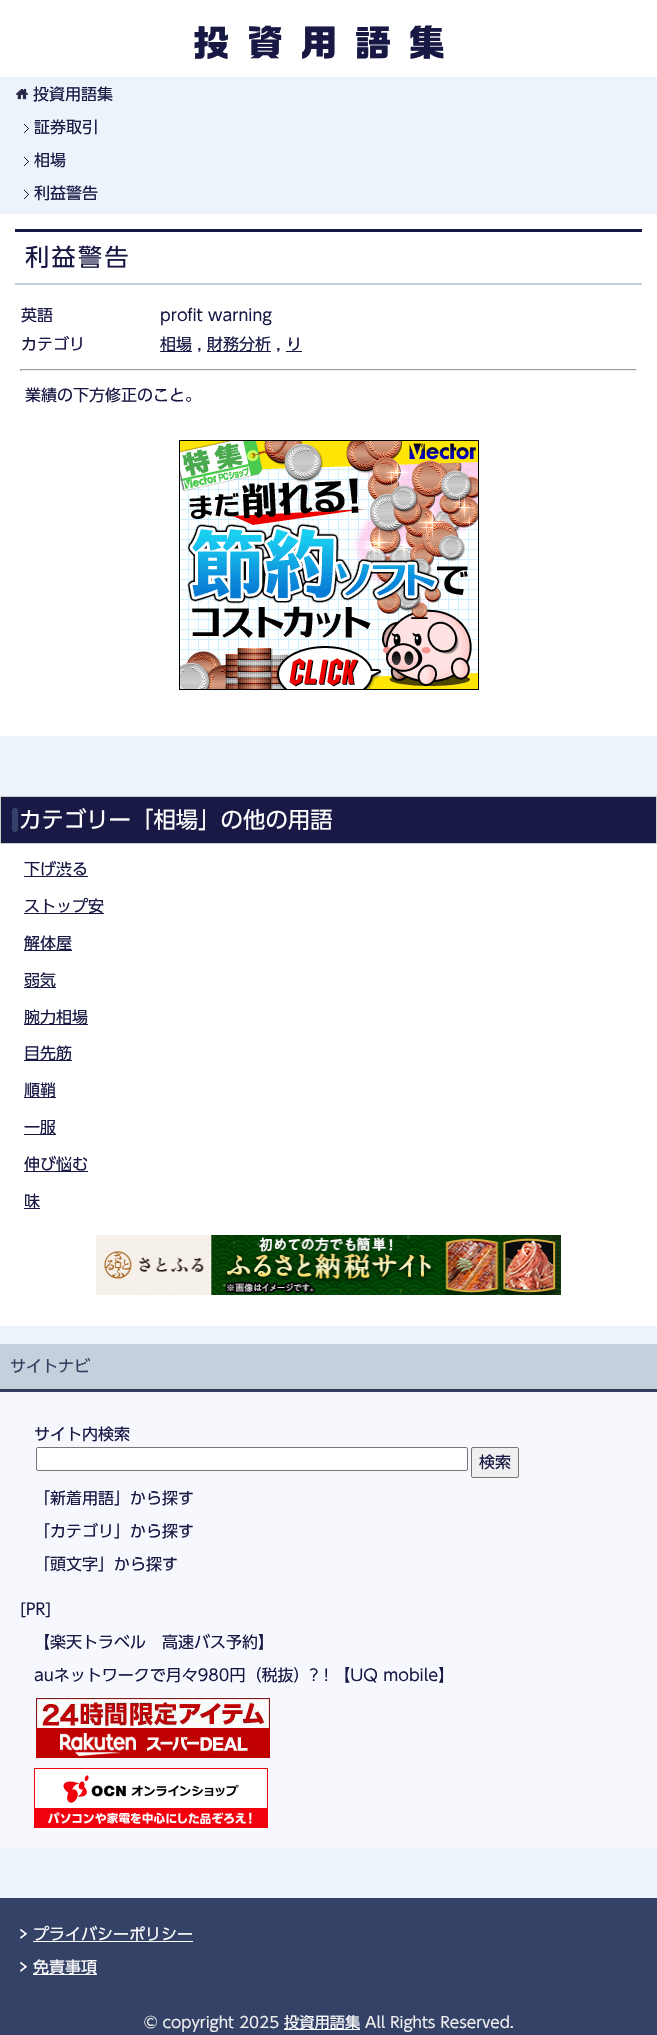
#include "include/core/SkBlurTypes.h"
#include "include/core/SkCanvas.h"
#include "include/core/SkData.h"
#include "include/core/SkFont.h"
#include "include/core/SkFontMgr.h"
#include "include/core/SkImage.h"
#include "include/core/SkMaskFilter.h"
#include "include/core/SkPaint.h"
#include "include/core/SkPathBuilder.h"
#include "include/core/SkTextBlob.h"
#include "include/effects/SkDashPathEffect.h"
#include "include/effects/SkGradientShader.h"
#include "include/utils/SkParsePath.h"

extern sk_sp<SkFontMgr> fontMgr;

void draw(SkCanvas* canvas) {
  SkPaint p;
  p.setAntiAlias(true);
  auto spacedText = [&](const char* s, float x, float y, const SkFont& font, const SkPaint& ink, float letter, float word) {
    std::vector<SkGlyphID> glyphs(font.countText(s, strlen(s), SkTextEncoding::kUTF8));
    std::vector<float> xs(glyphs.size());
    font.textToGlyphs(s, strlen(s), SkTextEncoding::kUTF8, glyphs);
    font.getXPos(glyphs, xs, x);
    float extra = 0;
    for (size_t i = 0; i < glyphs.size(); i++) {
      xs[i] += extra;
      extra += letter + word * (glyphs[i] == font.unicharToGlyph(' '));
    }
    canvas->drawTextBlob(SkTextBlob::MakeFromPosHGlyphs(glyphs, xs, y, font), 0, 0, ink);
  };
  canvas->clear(SkColorSetRGB(237, 243, 251));
  p.setColor(SK_ColorWHITE);
  canvas->drawRect(SkRect::MakeLTRB(0, 0, 657, 77), p);
  canvas->drawImageRect(SkImages::DeferredFromEncodedData(SkData::MakeFromFileName("images/1.png")), SkRect::MakeLTRB(16, 88, 28, 100), SkSamplingOptions());
  canvas->drawImageRect(SkImages::DeferredFromEncodedData(SkData::MakeFromFileName("images/2.png")), SkRect::MakeLTRB(24, 124, 29, 133), SkSamplingOptions());
  canvas->drawImageRect(SkImages::DeferredFromEncodedData(SkData::MakeFromFileName("images/2.png")), SkRect::MakeLTRB(24, 157, 29, 166), SkSamplingOptions());
  canvas->drawImageRect(SkImages::DeferredFromEncodedData(SkData::MakeFromFileName("images/2.png")), SkRect::MakeLTRB(24, 190, 29, 199), SkSamplingOptions());
  canvas->drawRect(SkRect::MakeLTRB(0, 214, 657, 736), p);
  p.setColor(SkColorSetRGB(24, 25, 68));
  canvas->drawRect(SkRect::MakeLTRB(15, 229, 642, 232), p);
  p.setColor(SkColorSetRGB(198, 208, 220));
  canvas->drawRect(SkRect::MakeLTRB(15, 283, 642, 285), p);
  p.setColor(SkColorSetRGB(23, 24, 68));
  canvas->drawRect(SkRect::MakeLTRB(160, 351, 192, 352), p);
  canvas->drawRect(SkRect::MakeLTRB(207, 351, 271, 352), p);
  canvas->drawRect(SkRect::MakeLTRB(286, 351, 302, 352), p);
  p.setColor(SkColorSetRGB(159, 159, 159));
  canvas->drawRect(SkRect::MakeLTRB(20, 369, 637, 370), p);
  p.setColor(SkColorSetRGB(238, 238, 238));
  canvas->drawRect(SkRect::MakeLTRB(636, 369, 637, 371), p);
  canvas->drawRect(SkRect::MakeLTRB(20, 370, 637, 371), p);
  p.setColor(SkColorSetRGB(159, 159, 159));
  canvas->drawRect(SkRect::MakeLTRB(20, 369, 21, 371), p);
  canvas->drawImageRect(SkImages::DeferredFromEncodedData(SkData::MakeFromFileName("images/3.png")), SkRect::MakeLTRB(179, 440, 479, 690), SkSamplingOptions());
  p.setColor(SK_ColorWHITE);
  canvas->drawRect(SkRect::MakeLTRB(0, 844, 657, 1326), p);
  p.setColor(SkColorSetRGB(24, 25, 68));
  canvas->drawRect(SkRect::MakeLTRB(0.5f, 796.5f, 656.5f, 843.5f), p);
  p.setStyle(SkPaint::kStroke_Style);
  p.setStrokeWidth(1);
  p.setColor(SkColorSetRGB(204, 204, 204));
  canvas->drawRect(SkRect::MakeLTRB(0.5f, 796.5f, 656.5f, 843.5f), p);
  p.setStyle(SkPaint::kFill_Style);
  p.setColor(SkColorSetRGB(53, 66, 103));
  canvas->drawRoundRect(SkRect::MakeLTRB(12, 808, 18, 832), 3, 3, p);
  p.setColor(SkColorSetRGB(23, 24, 68));
  canvas->drawRect(SkRect::MakeLTRB(24, 876, 88, 877), p);
  canvas->drawRect(SkRect::MakeLTRB(24, 913, 104, 914), p);
  canvas->drawRect(SkRect::MakeLTRB(24, 950, 72, 951), p);
  canvas->drawRect(SkRect::MakeLTRB(24, 987, 56, 988), p);
  canvas->drawRect(SkRect::MakeLTRB(24, 1024, 88, 1025), p);
  canvas->drawRect(SkRect::MakeLTRB(24, 1060, 72, 1061), p);
  canvas->drawRect(SkRect::MakeLTRB(24, 1097, 56, 1098), p);
  canvas->drawRect(SkRect::MakeLTRB(24, 1134, 56, 1135), p);
  canvas->drawRect(SkRect::MakeLTRB(24, 1171, 88, 1172), p);
  canvas->drawRect(SkRect::MakeLTRB(24, 1208, 40, 1209), p);
  canvas->drawImageRect(SkImages::DeferredFromEncodedData(SkData::MakeFromFileName("images/4.png")), SkRect::MakeLTRB(96, 1235, 561, 1295), SkSamplingOptions());
  p.setColor(SkColorSetRGB(246, 248, 254));
  canvas->drawRect(SkRect::MakeLTRB(0, 1392, 657, 1848), p);
  p.setColor(SkColorSetRGB(198, 208, 220));
  canvas->drawRect(SkRect::MakeLTRB(0, 1344, 657, 1389), p);
  p.setColor(SkColorSetRGB(55, 61, 96));
  canvas->drawRect(SkRect::MakeLTRB(0, 1389, 657, 1392), p);
  p.setColor(SK_ColorWHITE);
  canvas->drawRoundRect(SkRect::MakeLTRB(36.5f, 1447.5f, 467.5f, 1470.5f), 1.5f, 1.5f, p);
  p.setStyle(SkPaint::kStroke_Style);
  p.setColor(SkColorSetRGB(118, 118, 118));
  canvas->drawRoundRect(SkRect::MakeLTRB(36.5f, 1447.5f, 467.5f, 1470.5f), 1.5f, 1.5f, p);
  p.setStyle(SkPaint::kFill_Style);
  p.setColor(SkColorSetRGB(239, 239, 239));
  canvas->drawRoundRect(SkRect::MakeLTRB(471.5f, 1447.5f, 518.5f, 1477.5f), 1.5f, 1.5f, p);
  p.setStyle(SkPaint::kStroke_Style);
  p.setColor(SkColorSetRGB(118, 118, 118));
  canvas->drawRoundRect(SkRect::MakeLTRB(471.5f, 1447.5f, 518.5f, 1477.5f), 1.5f, 1.5f, p);
  canvas->drawImageRect(SkImages::DeferredFromEncodedData(SkData::MakeFromFileName("images/5.png")), SkRect::MakeLTRB(36, 1698, 270, 1758), SkSamplingOptions());
  canvas->drawImageRect(SkImages::DeferredFromEncodedData(SkData::MakeFromFileName("images/6.png")), SkRect::MakeLTRB(34, 1768, 268, 1828), SkSamplingOptions());
  p.setStyle(SkPaint::kFill_Style);
  p.setColor(SkColorSetRGB(53, 66, 103));
  canvas->drawRect(SkRect::MakeLTRB(0, 1898, 657, 2035), p);
  canvas->drawImageRect(SkImages::DeferredFromEncodedData(SkData::MakeFromFileName("images/7.png")), SkRect::MakeLTRB(20, 1929, 27, 1939), SkSamplingOptions());
  p.setColor(SK_ColorWHITE);
  canvas->drawRect(SkRect::MakeLTRB(33, 1941, 193, 1942), p);
  canvas->drawImageRect(SkImages::DeferredFromEncodedData(SkData::MakeFromFileName("images/7.png")), SkRect::MakeLTRB(20, 1962, 27, 1972), SkSamplingOptions());
  canvas->drawRect(SkRect::MakeLTRB(33, 1974, 97, 1975), p);
  canvas->drawRect(SkRect::MakeLTRB(284, 2029, 360, 2030), p);
  SkFont font1(fontMgr->matchFamilyStyle("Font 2", SkFontStyle::Normal()), 36);
  font1.setSubpixel(true);
  p.setColor(SkColorSetRGB(23, 24, 68));
  spacedText("投資用語集", 193, 56, font1, p, 18, 0);
  SkFont font2(fontMgr->matchFamilyStyle("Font", SkFontStyle::Normal()), 16);
  font2.setSubpixel(true);
  canvas->drawString("投資用語集", 33, 100, font2, p);
  canvas->drawString("証券取引", 34, 133, font2, p);
  canvas->drawString("相場", 34, 166, font2, p);
  canvas->drawString("利益警告", 34, 199, font2, p);
  SkFont font3(fontMgr->matchFamilyStyle("Font", SkFontStyle::Normal()), 24);
  font3.setSubpixel(true);
  spacedText("利益警告", 25, 266, font3, p, 2.5f, 0);
  canvas->drawString("英語", 21, 321, font2, p);
  canvas->drawString("profit warning", 160, 321, font2, p);
  canvas->drawString("カテゴリ", 21, 350, font2, p);
  canvas->drawString("相場 ,", 160, 350, font2, p);
  canvas->drawString("財務分析 , り", 207, 350, font2, p);
  canvas->drawString("業績の下方修正のこと。", 25, 401, font2, p);
  SkFont font4(fontMgr->matchFamilyStyle("Font", SkFontStyle::Normal()), 22.4f);
  font4.setSubpixel(true);
  p.setColor(SK_ColorWHITE);
  canvas->drawString("カテゴリー「相場」の他の用語", 19, 828, font4, p);
  p.setColor(SkColorSetRGB(23, 24, 68));
  canvas->drawString("下げ渋る", 24, 875, font2, p);
  canvas->drawString("ストップ安", 24, 912, font2, p);
  canvas->drawString("解体屋", 24, 949, font2, p);
  canvas->drawString("弱気", 24, 986, font2, p);
  canvas->drawString("腕力相場", 24, 1023, font2, p);
  canvas->drawString("目先筋", 24, 1059, font2, p);
  canvas->drawString("順鞘", 24, 1096, font2, p);
  canvas->drawString("一服", 24, 1133, font2, p);
  canvas->drawString("伸び悩む", 24, 1170, font2, p);
  canvas->drawString("味", 24, 1207, font2, p);
  p.setColor(SkColorSetRGB(55, 61, 96));
  canvas->drawString("サイトナビ", 10, 1372, font2, p);
  p.setColor(SkColorSetRGB(23, 24, 68));
  canvas->drawString("サイト内検索", 34, 1440, font2, p);
  canvas->drawString("検索", 479, 1468, font2, p);
  canvas->drawString("「新着用語」から探す", 34, 1504, font2, p);
  canvas->drawString("「カテゴリ」から探す", 34, 1537, font2, p);
  canvas->drawString("「頭文字」から探す", 34, 1570, font2, p);
  canvas->drawString("[PR]", 20, 1615, font2, p);
  canvas->drawString("【楽天トラベル　高速バス予約】", 34, 1648, font2, p);
  canvas->drawString("auネットワークで月々980円（税抜）?！【UQ mobile】", 34, 1681, font2, p);
  p.setColor(SK_ColorWHITE);
  canvas->drawString("プライバシーポリシー", 33, 1940, font2, p);
  canvas->drawString("免責事項", 33, 1973, font2, p);
  SkFont font5(fontMgr->matchFamilyStyle("Font", SkFontStyle::Normal()), 15.25f);
  font5.setSubpixel(true);
  p.setColor(SkColorSetRGB(238, 238, 238));
  canvas->drawString("© copyright 2025", 144, 2028, font5, p);
  p.setColor(SK_ColorWHITE);
  canvas->drawString("投資用語集", 284, 2028, font5, p);
  p.setColor(SkColorSetRGB(238, 238, 238));
  canvas->drawString("All Rights Reserved.", 365, 2028, font5, p);
}
